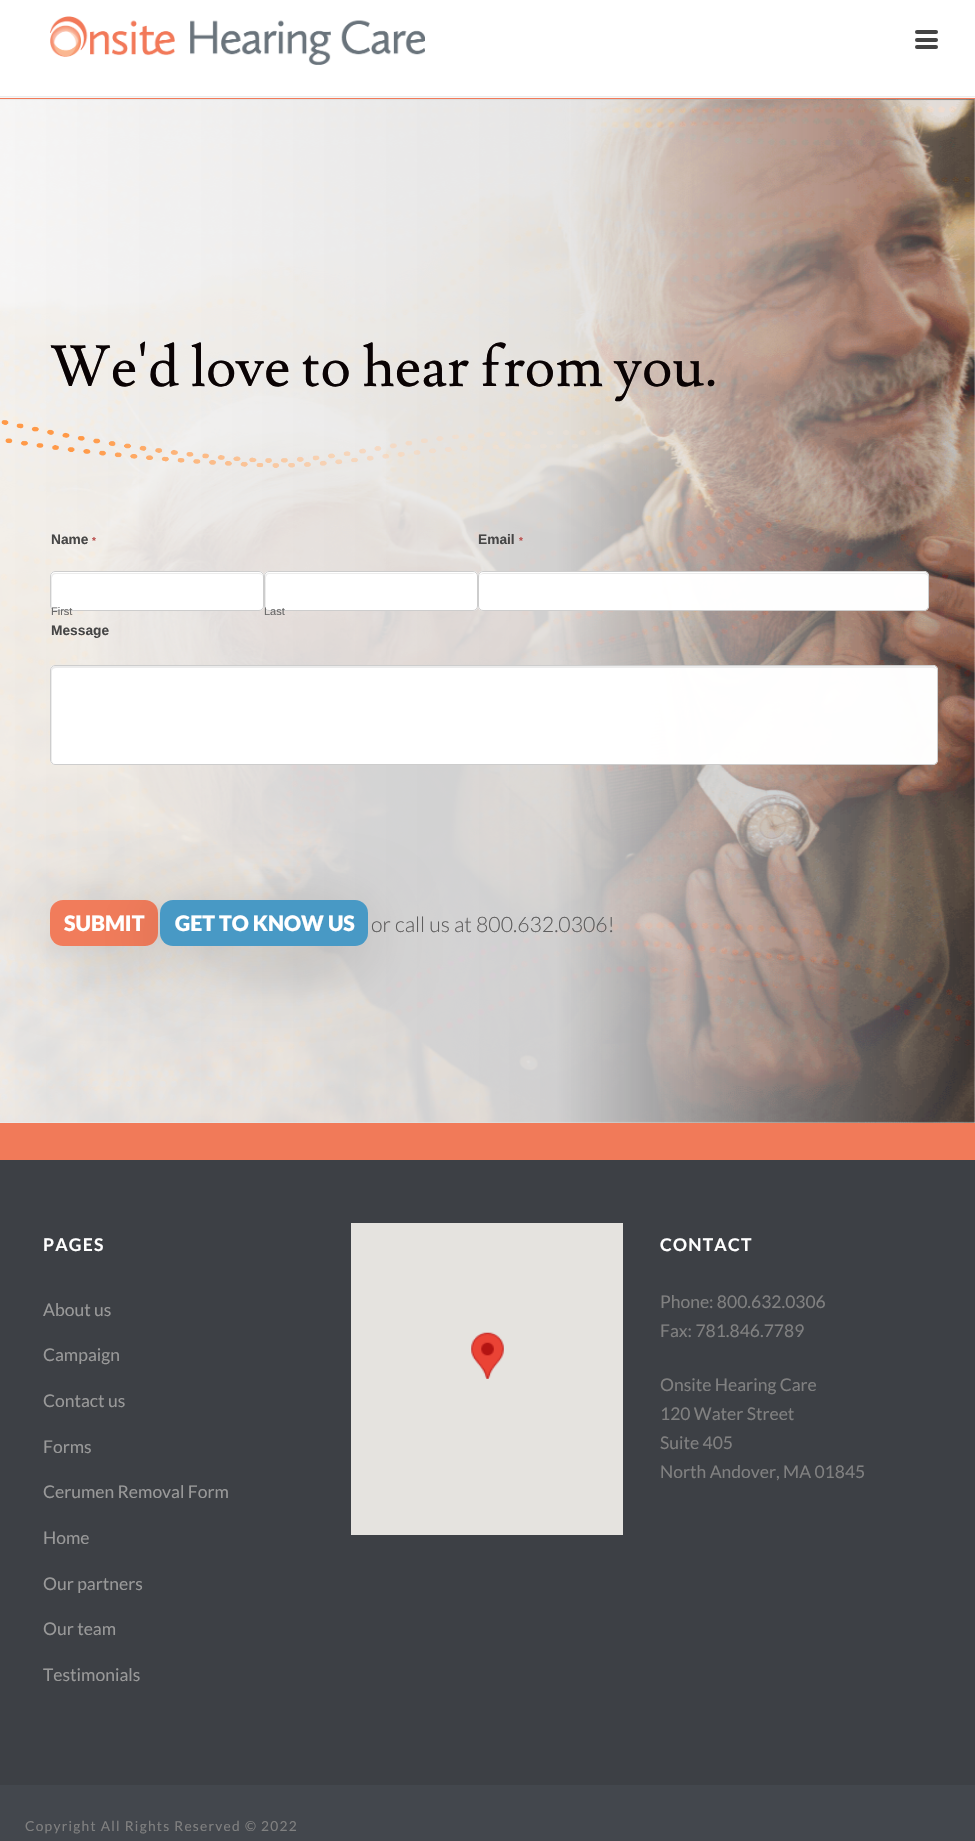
#include "include/core/SkBlurTypes.h"
#include "include/core/SkCanvas.h"
#include "include/core/SkData.h"
#include "include/core/SkFont.h"
#include "include/core/SkFontMgr.h"
#include "include/core/SkImage.h"
#include "include/core/SkMaskFilter.h"
#include "include/core/SkPaint.h"
#include "include/core/SkPathBuilder.h"
#include "include/core/SkTextBlob.h"
#include "include/effects/SkDashPathEffect.h"
#include "include/effects/SkGradientShader.h"
#include "include/utils/SkParsePath.h"

extern sk_sp<SkFontMgr> fontMgr;

void draw(SkCanvas* canvas) {
  SkPaint p;
  p.setAntiAlias(true);
  auto spacedText = [&](const char* s, float x, float y, const SkFont& font, const SkPaint& ink, float letter, float word) {
    std::vector<SkGlyphID> glyphs(font.countText(s, strlen(s), SkTextEncoding::kUTF8));
    std::vector<float> xs(glyphs.size());
    font.textToGlyphs(s, strlen(s), SkTextEncoding::kUTF8, glyphs);
    font.getXPos(glyphs, xs, x);
    float extra = 0;
    for (size_t i = 0; i < glyphs.size(); i++) {
      xs[i] += extra;
      extra += letter + word * (glyphs[i] == font.unicharToGlyph(' '));
    }
    canvas->drawTextBlob(SkTextBlob::MakeFromPosHGlyphs(glyphs, xs, y, font), 0, 0, ink);
  };
  canvas->clear(SK_ColorWHITE);
  p.setColor(SkColorSetRGB(247, 247, 247));
  canvas->drawRect(SkRect::MakeLTRB(0, 97, 975, 98), p);
  p.setColor(SkColorSetRGB(241, 122, 89));
  canvas->drawRect(SkRect::MakeLTRB(0, 98, 975, 99), p);
  p.setColor(SkColorSetRGB(237, 237, 237));
  canvas->drawRect(SkRect::MakeLTRB(0, 96, 975, 97), p);
  canvas->drawImageRect(SkImages::DeferredFromEncodedData(SkData::MakeFromFileName("images/1.png")), SkRect::MakeLTRB(50, 16, 425, 65), SkSamplingOptions());
  p.setColor(SkColorSetRGB(68, 68, 68));
  canvas->drawRoundRect(SkRect::MakeLTRB(915, 30, 938, 34), 2, 2, p);
  canvas->drawRoundRect(SkRect::MakeLTRB(915, 38, 938, 42), 2, 2, p);
  canvas->drawRoundRect(SkRect::MakeLTRB(915, 45, 938, 49), 2, 2, p);
  canvas->drawImageRect(SkImages::DeferredFromEncodedData(SkData::MakeFromFileName("images/2.png")), SkRect::MakeLTRB(0, 99, 975, 1123), SkSamplingOptions());
  {
    const SkColor colors[] = {SkColorSetARGB(227, 247, 247, 247), SkColorSetARGB(227, 229, 229, 229), SkColorSetARGB(26, 215, 215, 215)};
    const float stops[] = {0, 0.57f, 1};
    const SkPoint ends[] = {{0, 611}, {975, 611}};
    p.setShader(SkGradientShader::MakeLinear(ends, colors, stops, 3, SkTileMode::kClamp));
    p.setAlpha(255);
  }
  canvas->drawRect(SkRect::MakeLTRB(0, 99, 975, 1123), p);
  canvas->drawImageRect(SkImages::DeferredFromEncodedData(SkData::MakeFromFileName("images/3.png")), SkRect::MakeLTRB(1, 420, 625, 468), SkSamplingOptions());
  p.setShader(nullptr);
  p.setColor(SkColorSetARGB(252, 255, 255, 255));
  canvas->drawRoundRect(SkRect::MakeLTRB(50, 571, 264, 611), 5, 5, p);
  p.setColor(SkColorSetRGB(236, 236, 236));
  canvas->drawPath(SkPathBuilder().moveTo(56, 574).lineTo(259, 574).cubicTo(261, 574, 263, 575, 263, 578).lineTo(263, 577).cubicTo(263, 575, 261, 573, 259, 573).lineTo(55, 573).cubicTo(53, 573, 51, 575, 51, 577).lineTo(51, 606).cubicTo(51, 607, 51, 608, 52, 609).lineTo(52, 583).cubicTo(52, 580, 51, 574, 56, 574).close().detach(), p);
  p.setStyle(SkPaint::kStroke_Style);
  p.setStrokeWidth(1);
  p.setColor(SkColorSetARGB(252, 204, 204, 204));
  canvas->drawRoundRect(SkRect::MakeLTRB(50.5f, 571.5f, 263.5f, 610.5f), 4.5f, 4.5f, p);
  p.setStyle(SkPaint::kFill_Style);
  p.setColor(SkColorSetARGB(252, 255, 255, 255));
  canvas->drawRoundRect(SkRect::MakeLTRB(478, 571, 929, 611), 5, 5, p);
  p.setColor(SkColorSetRGB(235, 235, 235));
  canvas->drawPath(SkPathBuilder().moveTo(483, 574).lineTo(924, 574).cubicTo(926, 574, 928, 575, 928, 578).cubicTo(928, 575, 927, 573, 924, 573).lineTo(483, 573).lineTo(481, 574).lineTo(480, 575).lineTo(479, 578).cubicTo(479, 575, 481, 574, 483, 574).close().detach(), p);
  p.setStyle(SkPaint::kStroke_Style);
  p.setColor(SkColorSetARGB(252, 204, 204, 204));
  canvas->drawRoundRect(SkRect::MakeLTRB(478.5f, 571.5f, 928.5f, 610.5f), 4.5f, 4.5f, p);
  p.setStyle(SkPaint::kFill_Style);
  p.setColor(SkColorSetARGB(252, 255, 255, 255));
  canvas->drawRoundRect(SkRect::MakeLTRB(264, 571, 478, 611), 5, 5, p);
  p.setColor(SkColorSetRGB(236, 236, 236));
  canvas->drawPath(SkPathBuilder().moveTo(269, 574).lineTo(473, 574).lineTo(475, 574).cubicTo(474, 574, 473, 573, 472, 573).lineTo(269, 573).cubicTo(267, 573, 265, 575, 265, 577).lineTo(265, 606).cubicTo(265, 607, 265, 608, 266, 609).lineTo(266, 583).cubicTo(266, 581, 265, 574, 269, 574).close().detach(), p);
  p.setStyle(SkPaint::kStroke_Style);
  p.setColor(SkColorSetARGB(252, 204, 204, 204));
  canvas->drawRoundRect(SkRect::MakeLTRB(264.5f, 571.5f, 477.5f, 610.5f), 4.5f, 4.5f, p);
  p.setStyle(SkPaint::kFill_Style);
  p.setColor(SkColorSetARGB(252, 255, 255, 255));
  canvas->drawRoundRect(SkRect::MakeLTRB(50, 665, 938, 765), 5, 5, p);
  p.setColor(SkColorSetRGB(236, 236, 236));
  canvas->drawPath(SkPathBuilder().moveTo(56, 668).lineTo(933, 668).lineTo(936, 669).cubicTo(935, 667, 934, 666, 932, 666).lineTo(55, 666).cubicTo(53, 666, 51, 668, 51, 670).lineTo(51, 760).cubicTo(51, 761, 52, 763, 53, 763).lineTo(52, 761).lineTo(52, 671).cubicTo(52, 669, 54, 668, 56, 668).close().detach(), p);
  p.setStyle(SkPaint::kStroke_Style);
  p.setColor(SkColorSetARGB(252, 204, 204, 204));
  canvas->drawRoundRect(SkRect::MakeLTRB(50.5f, 665.5f, 937.5f, 764.5f), 4.5f, 4.5f, p);
  canvas->save();
  canvas->clipPath(SkPathBuilder(SkPathFillType::kEvenOdd).moveTo(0, 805).lineTo(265, 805).lineTo(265, 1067).lineTo(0, 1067).close().moveTo(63, 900).lineTo(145, 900).cubicTo(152, 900, 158, 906, 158, 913).lineTo(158, 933).cubicTo(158, 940, 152, 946, 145, 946).lineTo(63, 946).cubicTo(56, 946, 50, 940, 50, 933).lineTo(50, 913).cubicTo(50, 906, 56, 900, 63, 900).close().detach(), true);
  p.setStyle(SkPaint::kFill_Style);
  p.setColor(SkColorSetARGB(77, 0, 0, 0));
  p.setMaskFilter(SkMaskFilter::MakeBlur(kNormal_SkBlurStyle, 37.5f));
  canvas->drawRoundRect(SkRect::MakeLTRB(56, 919, 151, 953), 6, 6, p);
  p.setMaskFilter(nullptr);
  canvas->restore();
  p.setColor(SkColorSetARGB(252, 241, 122, 89));
  canvas->drawRoundRect(SkRect::MakeLTRB(50, 900, 158, 946), 13, 13, p);
  canvas->save();
  canvas->clipPath(SkPathBuilder(SkPathFillType::kEvenOdd).moveTo(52, 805).lineTo(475, 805).lineTo(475, 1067).lineTo(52, 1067).close().moveTo(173, 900).lineTo(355, 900).cubicTo(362, 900, 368, 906, 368, 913).lineTo(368, 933).cubicTo(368, 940, 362, 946, 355, 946).lineTo(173, 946).cubicTo(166, 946, 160, 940, 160, 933).lineTo(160, 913).cubicTo(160, 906, 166, 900, 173, 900).close().detach(), true);
  p.setColor(SkColorSetARGB(77, 0, 0, 0));
  p.setMaskFilter(SkMaskFilter::MakeBlur(kNormal_SkBlurStyle, 37.5f));
  canvas->drawRoundRect(SkRect::MakeLTRB(166, 919, 361, 953), 6, 6, p);
  p.setMaskFilter(nullptr);
  canvas->restore();
  p.setColor(SkColorSetARGB(252, 70, 152, 196));
  canvas->drawRoundRect(SkRect::MakeLTRB(160, 900, 368, 946), 13, 13, p);
  p.setColor(SkColorSetRGB(61, 64, 69));
  canvas->drawRect(SkRect::MakeLTRB(0, 1160, 975, 1785), p);
  p.setColor(SkColorSetRGB(241, 122, 89));
  canvas->drawRect(SkRect::MakeLTRB(0, 1123, 975, 1160), p);
  p.setColor(SkColorSetRGB(229, 227, 223));
  canvas->drawRect(SkRect::MakeLTRB(351, 1223, 623, 1535), p);
  canvas->drawImageRect(SkImages::DeferredFromEncodedData(SkData::MakeFromFileName("images/4.png")), SkRect::MakeLTRB(471, 1332, 504, 1379), SkSamplingOptions());
  p.setColor(SkColorSetRGB(67, 71, 77));
  canvas->drawRect(SkRect::MakeLTRB(0, 1785, 975, 1841), p);
  SkFont font1(fontMgr->matchFamilyStyle("Lusitana", SkFontStyle::Normal()), 57.5f);
  font1.setSubpixel(true);
  p.setColor(SkColorSetRGB(10, 3, 4));
  canvas->drawString("We'd love to hear from you.", 50, 386, font1, p);
  SkFont font2(fontMgr->matchFamilyStyle("Liberation Sans", SkFontStyle::Bold()), 13.75f);
  font2.setSubpixel(true);
  p.setColor(SkColorSetRGB(70, 70, 70));
  canvas->drawString("Name", 51, 544, font2, p);
  SkFont font3(fontMgr->matchFamilyStyle("Liberation Sans", SkFontStyle::Bold()), 10);
  font3.setSubpixel(true);
  p.setColor(SkColorSetRGB(186, 76, 74));
  canvas->drawString("*", 92, 544, font3, p);
  SkFont font4(fontMgr->matchFamilyStyle("Liberation Sans", SkFontStyle::Normal()), 11);
  font4.setSubpixel(true);
  p.setColor(SkColorSetRGB(104, 104, 104));
  canvas->drawString("First", 51, 615, font4, p);
  p.setColor(SkColorSetRGB(70, 70, 70));
  canvas->drawString("Email", 478, 544, font2, p);
  p.setColor(SkColorSetRGB(186, 76, 74));
  canvas->drawString("*", 519, 544, font3, p);
  p.setColor(SkColorSetRGB(104, 104, 104));
  canvas->drawString("Last", 264, 615, font4, p);
  p.setColor(SkColorSetRGB(70, 70, 70));
  canvas->drawString("Message", 51, 635, font2, p);
  SkFont font5(fontMgr->matchFamilyStyle("Lato", SkFontStyle(900, SkFontStyle::kNormal_Width, SkFontStyle::kUpright_Slant)), 21.25f);
  font5.setSubpixel(true);
  p.setColor(SK_ColorWHITE);
  canvas->drawString("SUBMIT", 64, 931, font5, p);
  canvas->drawString("GET TO KNOW US", 175, 931, font5, p);
  SkFont font6(fontMgr->matchFamilyStyle("Lato", SkFontStyle(300, SkFontStyle::kNormal_Width, SkFontStyle::kUpright_Slant)), 21.25f);
  font6.setSubpixel(true);
  p.setColor(SkColorSetRGB(93, 92, 92));
  canvas->drawString("or call us at 800.632.0306!", 371, 932, font6, p);
  SkFont font7(fontMgr->matchFamilyStyle("Lato", SkFontStyle::Bold()), 17.5f);
  font7.setSubpixel(true);
  p.setColor(SK_ColorWHITE);
  spacedText("PAGES", 43, 1251, font7, p, 1.25f, 0);
  SkFont font8(fontMgr->matchFamilyStyle("Lato", SkFontStyle::Normal()), 17.5f);
  font8.setSubpixel(true);
  p.setColor(SkColorSetRGB(153, 153, 153));
  canvas->drawString("About us", 43, 1316, font8, p);
  canvas->drawString("Campaign", 43, 1361, font8, p);
  canvas->drawString("Contact us", 43, 1407, font8, p);
  canvas->drawString("Forms", 43, 1453, font8, p);
  canvas->drawString("Cerumen Removal Form", 43, 1498, font8, p);
  canvas->drawString("Home", 43, 1544, font8, p);
  canvas->drawString("Our partners", 43, 1590, font8, p);
  canvas->drawString("Our team", 43, 1635, font8, p);
  canvas->drawString("Testimonials", 43, 1681, font8, p);
  p.setColor(SK_ColorWHITE);
  spacedText("CONTACT", 660, 1251, font7, p, 1.25f, 0);
  p.setColor(SkColorSetRGB(128, 128, 128));
  canvas->drawString("Phone: 800.632.0306", 660, 1308, font8, p);
  canvas->drawString("Fax: 781.846.7789", 660, 1337, font8, p);
  canvas->drawString("Onsite Hearing Care", 660, 1391, font8, p);
  canvas->drawString("120 Water Street", 660, 1420, font8, p);
  canvas->drawString("Suite 405", 660, 1449, font8, p);
  canvas->drawString("North Andover, MA 01845", 660, 1478, font8, p);
  SkFont font9(fontMgr->matchFamilyStyle("Lato", SkFontStyle::Normal()), 13.75f);
  font9.setSubpixel(true);
  spacedText("Copyright All Rights Reserved © 2022", 25, 1831, font9, p, 1.25f, 0);
}
